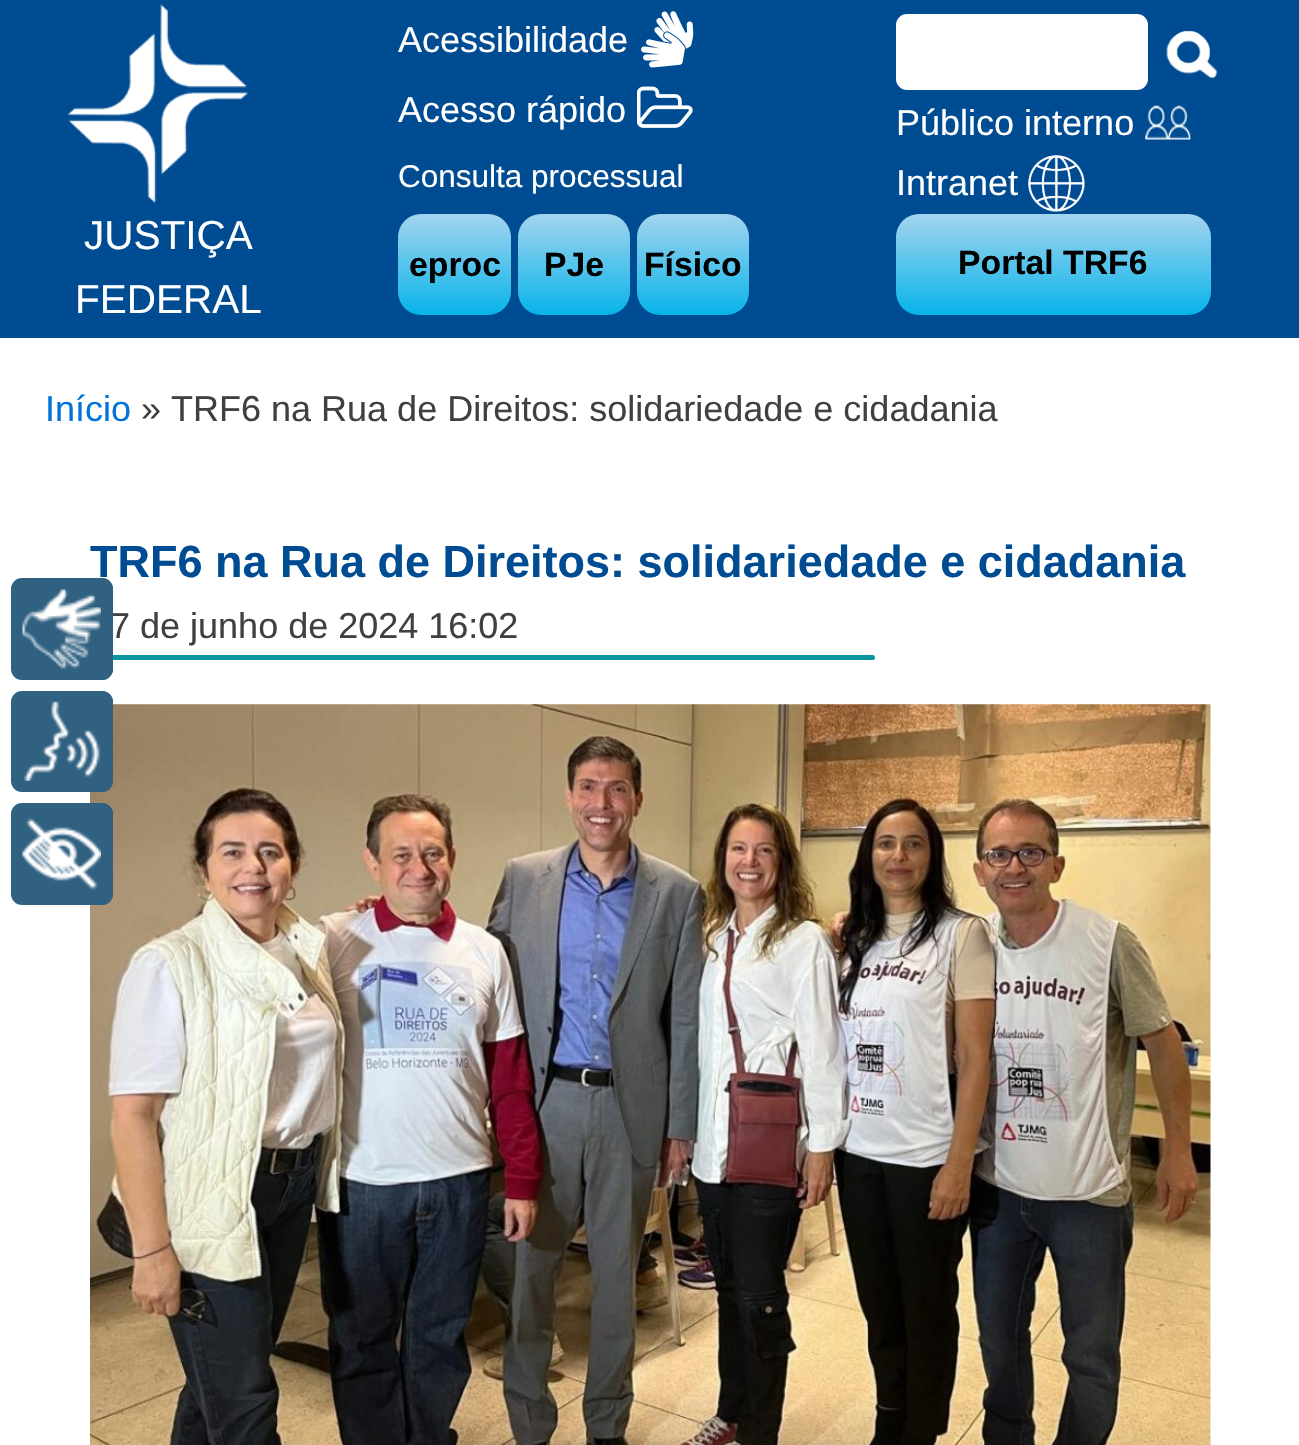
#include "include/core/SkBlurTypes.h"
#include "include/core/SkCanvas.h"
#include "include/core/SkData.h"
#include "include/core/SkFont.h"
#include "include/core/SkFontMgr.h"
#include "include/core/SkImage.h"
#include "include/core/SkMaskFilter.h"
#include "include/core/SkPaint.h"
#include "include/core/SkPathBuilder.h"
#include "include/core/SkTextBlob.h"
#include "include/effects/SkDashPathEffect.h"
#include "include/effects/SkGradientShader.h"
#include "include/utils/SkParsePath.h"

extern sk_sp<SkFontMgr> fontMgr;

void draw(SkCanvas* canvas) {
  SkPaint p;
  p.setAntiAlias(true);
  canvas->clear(SK_ColorWHITE);
  p.setColor(SkColorSetRGB(0, 76, 146));
  canvas->drawRect(SkRect::MakeLTRB(0, 0, 1299, 338), p);
  canvas->drawImageRect(SkImages::DeferredFromEncodedData(SkData::MakeFromFileName("images/1.png")), SkRect::MakeLTRB(67, 4, 248, 203), SkSamplingOptions());
  canvas->drawImageRect(SkImages::DeferredFromEncodedData(SkData::MakeFromFileName("images/2.png")), SkRect::MakeLTRB(641, 11, 694, 68), SkSamplingOptions());
  canvas->drawImageRect(SkImages::DeferredFromEncodedData(SkData::MakeFromFileName("images/3.png")), SkRect::MakeLTRB(637, 86, 693, 128), SkSamplingOptions());
  {
    const SkColor colors[] = {SkColorSetRGB(164, 212, 238), SkColorSetRGB(7, 180, 234)};
    const float stops[] = {0, 1};
    const SkPoint ends[] = {{455, 214}, {455, 315}};
    p.setShader(SkGradientShader::MakeLinear(ends, colors, stops, 2, SkTileMode::kClamp));
    p.setAlpha(255);
  }
  canvas->drawRoundRect(SkRect::MakeLTRB(398, 214, 511, 315), 23, 23, p);
  {
    const SkColor colors[] = {SkColorSetRGB(164, 212, 238), SkColorSetRGB(7, 180, 234)};
    const float stops[] = {0, 1};
    const SkPoint ends[] = {{574, 214}, {574, 315}};
    p.setShader(SkGradientShader::MakeLinear(ends, colors, stops, 2, SkTileMode::kClamp));
    p.setAlpha(255);
  }
  canvas->drawRoundRect(SkRect::MakeLTRB(518, 214, 630, 315), 23, 23, p);
  {
    const SkColor colors[] = {SkColorSetRGB(164, 212, 238), SkColorSetRGB(7, 180, 234)};
    const float stops[] = {0, 1};
    const SkPoint ends[] = {{693, 214}, {693, 315}};
    p.setShader(SkGradientShader::MakeLinear(ends, colors, stops, 2, SkTileMode::kClamp));
    p.setAlpha(255);
  }
  canvas->drawRoundRect(SkRect::MakeLTRB(637, 214, 749, 315), 23, 23, p);
  p.setShader(nullptr);
  p.setColor(SK_ColorWHITE);
  canvas->drawRoundRect(SkRect::MakeLTRB(896, 14, 1148, 90), 11, 11, p);
  canvas->drawImageRect(SkImages::DeferredFromEncodedData(SkData::MakeFromFileName("images/4.png")), SkRect::MakeLTRB(1166, 30, 1218, 79), SkSamplingOptions());
  canvas->drawImageRect(SkImages::DeferredFromEncodedData(SkData::MakeFromFileName("images/5.png")), SkRect::MakeLTRB(1145, 105, 1191, 140), SkSamplingOptions());
  canvas->drawImageRect(SkImages::DeferredFromEncodedData(SkData::MakeFromFileName("images/6.png")), SkRect::MakeLTRB(1028, 155, 1085, 212), SkSamplingOptions());
  {
    const SkColor colors[] = {SkColorSetRGB(164, 212, 238), SkColorSetRGB(7, 180, 234)};
    const float stops[] = {0, 1};
    const SkPoint ends[] = {{1053, 214}, {1053, 315}};
    p.setShader(SkGradientShader::MakeLinear(ends, colors, stops, 2, SkTileMode::kClamp));
    p.setAlpha(255);
  }
  canvas->drawRoundRect(SkRect::MakeLTRB(896, 214, 1211, 315), 23, 23, p);
  p.setShader(nullptr);
  p.setColor(SkColorSetRGB(8, 149, 156));
  canvas->drawRoundRect(SkRect::MakeLTRB(90, 655, 875, 660), 2.5f, 2.5f, p);
  canvas->drawImageRect(SkImages::DeferredFromEncodedData(SkData::MakeFromFileName("images/7.png")), SkRect::MakeLTRB(90, 704, 1211, 1445), SkSamplingOptions());
  p.setColor(SkColorSetRGB(49, 97, 129));
  canvas->drawRoundRect(SkRect::MakeLTRB(11, 691, 113, 792), 11, 11, p);
  canvas->drawImageRect(SkImages::DeferredFromEncodedData(SkData::MakeFromFileName("images/9.png")), SkRect::MakeLTRB(24, 701, 101, 781), SkSamplingOptions());
  canvas->drawPath(SkPathBuilder().moveTo(101, 691).lineTo(102, 691).cubicTo(108, 691, 113, 696, 113, 702).lineTo(113, 781).cubicTo(113, 787, 108, 792, 102, 792).lineTo(101, 792).close().detach(), p);
  canvas->drawRoundRect(SkRect::MakeLTRB(11, 803, 113, 905), 11, 11, p);
  canvas->drawImageRect(SkImages::DeferredFromEncodedData(SkData::MakeFromFileName("images/10.png")), SkRect::MakeLTRB(22, 818, 101, 890), SkSamplingOptions());
  canvas->drawPath(SkPathBuilder().moveTo(101, 803).lineTo(102, 803).cubicTo(108, 803, 113, 808, 113, 814).lineTo(113, 894).cubicTo(113, 900, 108, 905, 102, 905).lineTo(101, 905).close().detach(), p);
  SkFont font1(fontMgr->matchFamilyStyle("Liberation Sans", SkFontStyle::Normal()), 40.5f);
  font1.setSubpixel(true);
  p.setColor(SK_ColorWHITE);
  canvas->drawString("JUSTIÇA", 84, 249, font1, p);
  canvas->drawString("FEDERAL", 75, 313, font1, p);
  SkFont font2(fontMgr->matchFamilyStyle("Liberation Sans", SkFontStyle::Normal()), 36);
  font2.setSubpixel(true);
  canvas->drawString("Acessibilidade", 398, 52, font2, p);
  canvas->drawString("Acesso rápido", 398, 122, font2, p);
  SkFont font3(fontMgr->matchFamilyStyle("Liberation Sans", SkFontStyle::Normal()), 31.5f);
  font3.setSubpixel(true);
  canvas->drawString("Consulta processual", 398, 187, font3, p);
  SkFont font4(fontMgr->matchFamilyStyle("Liberation Sans", SkFontStyle::Bold()), 33.75f);
  font4.setSubpixel(true);
  p.setColor(SK_ColorBLACK);
  canvas->drawString("eproc", 409, 276, font4, p);
  canvas->drawString("PJe", 544, 276, font4, p);
  canvas->drawString("Físico", 644, 276, font4, p);
  p.setColor(SK_ColorWHITE);
  canvas->drawString("Público interno", 896, 135, font2, p);
  canvas->drawString("Intranet", 896, 195, font2, p);
  p.setColor(SK_ColorBLACK);
  canvas->drawString("Portal TRF6", 958, 274, font4, p);
  p.setColor(SkColorSetRGB(0, 116, 219));
  canvas->drawString("Início", 45, 421, font2, p);
  p.setColor(SkColorSetRGB(64, 64, 64));
  canvas->drawString("» TRF6 na Rua de Direitos: solidariedade e cidadania", 141, 421, font2, p);
  SkFont font5(fontMgr->matchFamilyStyle("Liberation Sans", SkFontStyle::Bold()), 45);
  font5.setSubpixel(true);
  p.setColor(SkColorSetRGB(0, 76, 146));
  canvas->drawString("TRF6 na Rua de Direitos: solidariedade e cidadania", 90, 577, font5, p);
  p.setColor(SkColorSetRGB(64, 64, 64));
  canvas->drawString("7 de junho de 2024 16:02", 110, 638, font2, p);
  p.setColor(SkColorSetRGB(49, 97, 129));
  canvas->drawRoundRect(SkRect::MakeLTRB(11, 578, 113, 680), 11, 11, p);
  canvas->drawImageRect(SkImages::DeferredFromEncodedData(SkData::MakeFromFileName("images/8.png")), SkRect::MakeLTRB(22, 589, 101, 669), SkSamplingOptions());
  canvas->drawPath(SkPathBuilder().moveTo(101, 578).lineTo(102, 578).cubicTo(108, 578, 113, 583, 113, 589).lineTo(113, 669).cubicTo(113, 675, 108, 680, 102, 680).lineTo(101, 680).close().detach(), p);
}
